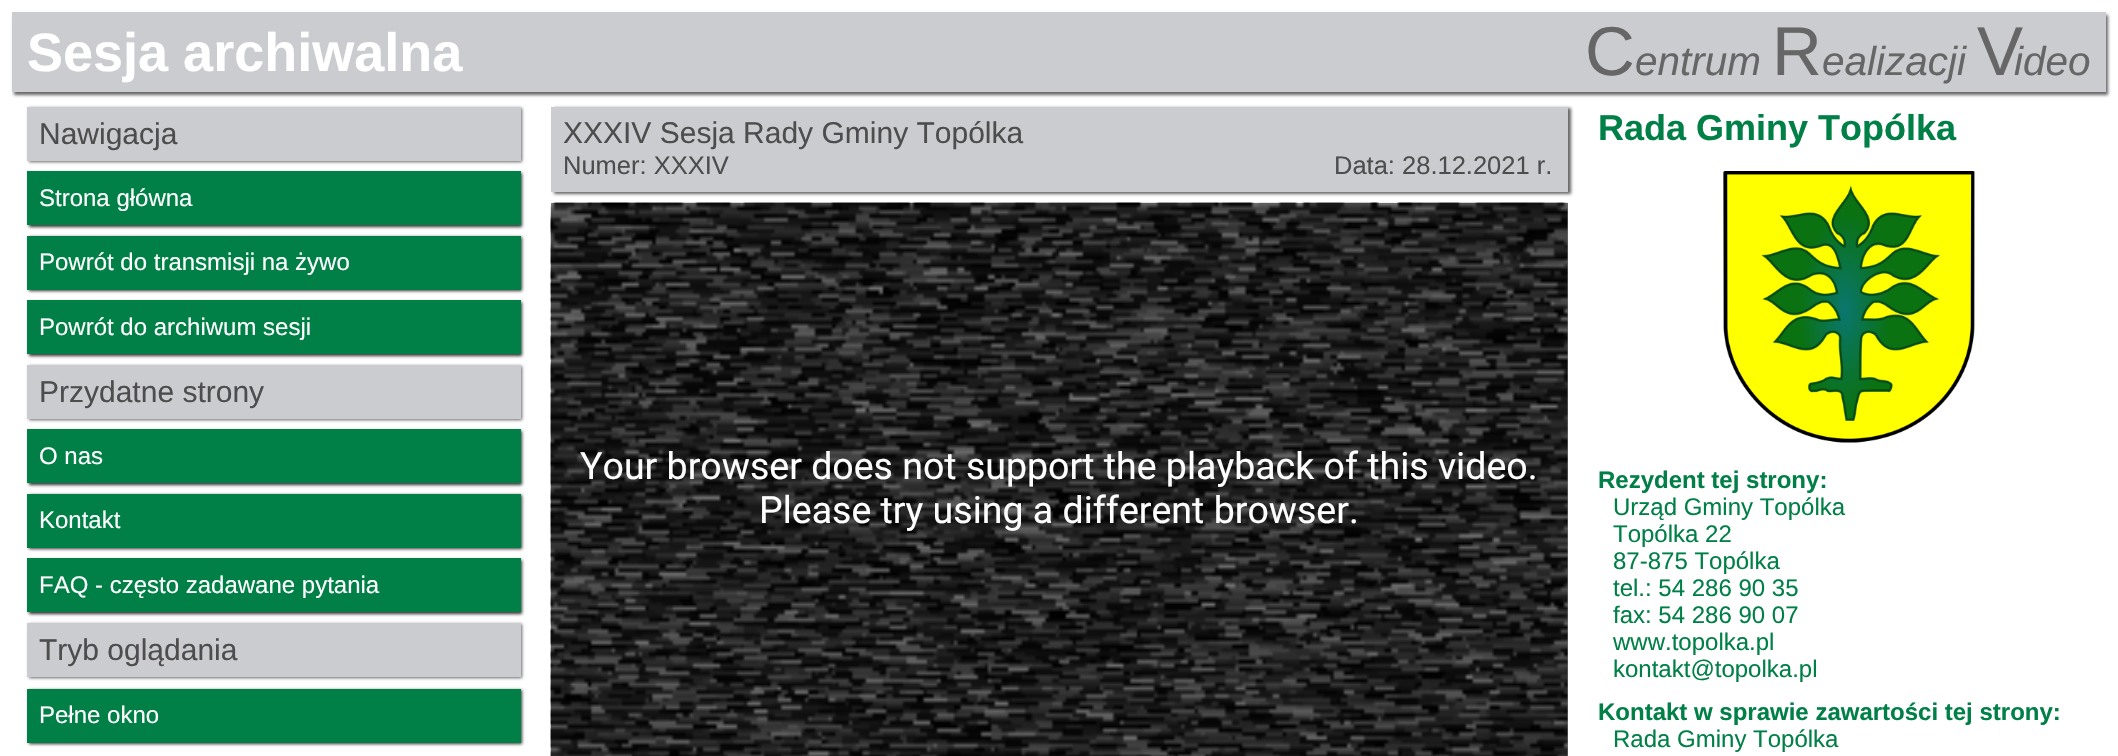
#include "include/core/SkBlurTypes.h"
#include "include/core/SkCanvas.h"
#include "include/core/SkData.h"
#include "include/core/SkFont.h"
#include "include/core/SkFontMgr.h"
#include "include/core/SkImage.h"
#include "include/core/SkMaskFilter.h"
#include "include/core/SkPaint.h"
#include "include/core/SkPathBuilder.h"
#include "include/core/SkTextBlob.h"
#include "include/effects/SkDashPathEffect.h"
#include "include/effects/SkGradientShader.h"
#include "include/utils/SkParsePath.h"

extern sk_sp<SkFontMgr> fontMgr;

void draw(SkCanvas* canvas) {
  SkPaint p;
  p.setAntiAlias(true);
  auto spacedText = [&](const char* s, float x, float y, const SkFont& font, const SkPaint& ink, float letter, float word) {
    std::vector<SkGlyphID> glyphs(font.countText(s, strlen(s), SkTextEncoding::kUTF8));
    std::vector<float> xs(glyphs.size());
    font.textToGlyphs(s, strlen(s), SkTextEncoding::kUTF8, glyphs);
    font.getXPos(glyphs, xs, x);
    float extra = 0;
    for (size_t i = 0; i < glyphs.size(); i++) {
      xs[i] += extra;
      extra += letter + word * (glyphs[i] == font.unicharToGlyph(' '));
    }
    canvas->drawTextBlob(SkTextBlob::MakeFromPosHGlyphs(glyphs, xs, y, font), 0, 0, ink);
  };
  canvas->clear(SK_ColorWHITE);
  p.setColor(SkColorSetRGB(102, 102, 102));
  p.setMaskFilter(SkMaskFilter::MakeBlur(kNormal_SkBlurStyle, 1.5f));
  canvas->drawRect(SkRect::MakeLTRB(14, 15, 2108, 95), p);
  p.setMaskFilter(nullptr);
  p.setColor(SkColorSetRGB(203, 204, 208));
  canvas->drawRect(SkRect::MakeLTRB(12, 12, 2106, 92), p);
  p.setColor(SkColorSetRGB(102, 102, 102));
  p.setMaskFilter(SkMaskFilter::MakeBlur(kNormal_SkBlurStyle, 1.5f));
  canvas->drawRect(SkRect::MakeLTRB(29, 108, 522, 162), p);
  p.setMaskFilter(nullptr);
  p.setColor(SkColorSetRGB(203, 204, 208));
  canvas->drawRect(SkRect::MakeLTRB(27, 107, 521, 161), p);
  p.setColor(SkColorSetRGB(51, 51, 51));
  p.setMaskFilter(SkMaskFilter::MakeBlur(kNormal_SkBlurStyle, 1.5f));
  canvas->drawRect(SkRect::MakeLTRB(29, 173, 522, 227), p);
  p.setMaskFilter(nullptr);
  p.setColor(SkColorSetRGB(0, 128, 71));
  canvas->drawRect(SkRect::MakeLTRB(27, 171, 521, 225), p);
  p.setColor(SkColorSetRGB(51, 51, 51));
  p.setMaskFilter(SkMaskFilter::MakeBlur(kNormal_SkBlurStyle, 1.5f));
  canvas->drawRect(SkRect::MakeLTRB(29, 237, 522, 291), p);
  p.setMaskFilter(nullptr);
  p.setColor(SkColorSetRGB(0, 128, 71));
  canvas->drawRect(SkRect::MakeLTRB(27, 236, 521, 290), p);
  p.setColor(SkColorSetRGB(51, 51, 51));
  p.setMaskFilter(SkMaskFilter::MakeBlur(kNormal_SkBlurStyle, 1.5f));
  canvas->drawRect(SkRect::MakeLTRB(29, 302, 522, 356), p);
  p.setMaskFilter(nullptr);
  p.setColor(SkColorSetRGB(0, 128, 71));
  canvas->drawRect(SkRect::MakeLTRB(27, 300, 521, 354), p);
  p.setColor(SkColorSetRGB(102, 102, 102));
  p.setMaskFilter(SkMaskFilter::MakeBlur(kNormal_SkBlurStyle, 1.5f));
  canvas->drawRect(SkRect::MakeLTRB(29, 366, 522, 420), p);
  p.setMaskFilter(nullptr);
  p.setColor(SkColorSetRGB(203, 204, 208));
  canvas->drawRect(SkRect::MakeLTRB(27, 365, 521, 419), p);
  p.setColor(SkColorSetRGB(51, 51, 51));
  p.setMaskFilter(SkMaskFilter::MakeBlur(kNormal_SkBlurStyle, 1.5f));
  canvas->drawRect(SkRect::MakeLTRB(29, 431, 522, 485), p);
  p.setMaskFilter(nullptr);
  p.setColor(SkColorSetRGB(0, 128, 71));
  canvas->drawRect(SkRect::MakeLTRB(27, 429, 521, 483), p);
  p.setColor(SkColorSetRGB(51, 51, 51));
  p.setMaskFilter(SkMaskFilter::MakeBlur(kNormal_SkBlurStyle, 1.5f));
  canvas->drawRect(SkRect::MakeLTRB(29, 495, 522, 549), p);
  p.setMaskFilter(nullptr);
  p.setColor(SkColorSetRGB(0, 128, 71));
  canvas->drawRect(SkRect::MakeLTRB(27, 494, 521, 548), p);
  p.setColor(SkColorSetRGB(51, 51, 51));
  p.setMaskFilter(SkMaskFilter::MakeBlur(kNormal_SkBlurStyle, 1.5f));
  canvas->drawRect(SkRect::MakeLTRB(29, 560, 522, 614), p);
  p.setMaskFilter(nullptr);
  p.setColor(SkColorSetRGB(0, 128, 71));
  canvas->drawRect(SkRect::MakeLTRB(27, 558, 521, 612), p);
  p.setColor(SkColorSetRGB(102, 102, 102));
  p.setMaskFilter(SkMaskFilter::MakeBlur(kNormal_SkBlurStyle, 1.5f));
  canvas->drawRect(SkRect::MakeLTRB(29, 624, 522, 678), p);
  p.setMaskFilter(nullptr);
  p.setColor(SkColorSetRGB(203, 204, 208));
  canvas->drawRect(SkRect::MakeLTRB(27, 623, 521, 677), p);
  p.setColor(SkColorSetRGB(51, 51, 51));
  p.setMaskFilter(SkMaskFilter::MakeBlur(kNormal_SkBlurStyle, 1.5f));
  canvas->drawRect(SkRect::MakeLTRB(29, 690, 522, 744), p);
  p.setMaskFilter(nullptr);
  p.setColor(SkColorSetRGB(0, 128, 71));
  canvas->drawRect(SkRect::MakeLTRB(27, 689, 521, 743), p);
  p.setColor(SkColorSetRGB(102, 102, 102));
  p.setMaskFilter(SkMaskFilter::MakeBlur(kNormal_SkBlurStyle, 1.5f));
  canvas->drawRect(SkRect::MakeLTRB(554, 108, 1571, 194), p);
  p.setMaskFilter(nullptr);
  p.setColor(SkColorSetRGB(203, 204, 208));
  canvas->drawRect(SkRect::MakeLTRB(551, 107, 1568, 192), p);
  p.setColor(SkColorSetRGB(119, 119, 119));
  canvas->drawRect(SkRect::MakeLTRB(551, 203, 1568, 756), p);
  canvas->drawImageRect(SkImages::DeferredFromEncodedData(SkData::MakeFromFileName("images/1.png")), SkRect::MakeLTRB(550, 202, 1568, 756), SkSamplingOptions());
  canvas->drawImageRect(SkImages::DeferredFromEncodedData(SkData::MakeFromFileName("images/2.png")), SkRect::MakeLTRB(1723, 171, 1975, 443), SkSamplingOptions());
  SkFont font1(fontMgr->matchFamilyStyle("Liberation Sans", SkFontStyle::Bold()), 54);
  font1.setSubpixel(true);
  p.setColor(SK_ColorWHITE);
  canvas->drawString("Sesja archiwalna", 27, 71, font1, p);
  SkFont font2(fontMgr->matchFamilyStyle("Liberation Sans", SkFontStyle::Normal()), 69);
  font2.setSubpixel(true);
  p.setColor(SkColorSetRGB(102, 102, 102));
  canvas->drawString("C", 1585, 75, font2, p);
  SkFont font3(fontMgr->matchFamilyStyle("Liberation Sans", SkFontStyle::Italic()), 40.5f);
  font3.setSubpixel(true);
  canvas->drawString("entrum", 1635, 75, font3, p);
  canvas->drawString("R", 1772, 75, font2, p);
  canvas->drawString("ealizacji", 1822, 75, font3, p);
  spacedText("V", 1977, 75, font2, p, -9, 0);
  canvas->drawString("ideo", 2014, 75, font3, p);
  SkFont font4(fontMgr->matchFamilyStyle("Liberation Sans", SkFontStyle::Normal()), 30);
  font4.setSubpixel(true);
  p.setColor(SkColorSetRGB(77, 77, 77));
  canvas->drawString("Nawigacja", 39, 144, font4, p);
  SkFont font5(fontMgr->matchFamilyStyle("Liberation Sans", SkFontStyle::Normal()), 24);
  font5.setSubpixel(true);
  p.setColor(SK_ColorWHITE);
  canvas->drawString("Strona główna", 39, 206, font5, p);
  canvas->drawString("Powrót do transmisji na żywo", 39, 270, font5, p);
  canvas->drawString("Powrót do archiwum sesji", 39, 335, font5, p);
  p.setColor(SkColorSetRGB(77, 77, 77));
  canvas->drawString("Przydatne strony", 39, 402, font4, p);
  p.setColor(SK_ColorWHITE);
  canvas->drawString("O nas", 39, 464, font5, p);
  canvas->drawString("Kontakt", 39, 528, font5, p);
  canvas->drawString("FAQ - często zadawane pytania", 39, 593, font5, p);
  p.setColor(SkColorSetRGB(77, 77, 77));
  canvas->drawString("Tryb oglądania", 39, 660, font4, p);
  p.setColor(SK_ColorWHITE);
  canvas->drawString("Pełne okno", 39, 723, font5, p);
  p.setColor(SkColorSetRGB(77, 77, 77));
  canvas->drawString("XXXIV Sesja Rady Gminy Topólka", 563, 143, font4, p);
  SkFont font6(fontMgr->matchFamilyStyle("Liberation Sans", SkFontStyle::Normal()), 25.5f);
  font6.setSubpixel(true);
  canvas->drawString("Numer: XXXIV", 563, 174, font6, p);
  canvas->drawString("Data: 28.12.2021 r.", 1334, 174, font6, p);
  SkFont font7(fontMgr->matchFamilyStyle("Roboto", SkFontStyle::Normal()), 37.5f);
  font7.setSubpixel(true);
  p.setColor(SK_ColorWHITE);
  canvas->drawString("Your browser does not support the playback of this video.", 580, 479, font7, p);
  canvas->drawString("Please try using a different browser.", 759, 523, font7, p);
  SkFont font8(fontMgr->matchFamilyStyle("Liberation Sans", SkFontStyle::Bold()), 36);
  font8.setSubpixel(true);
  p.setColor(SkColorSetRGB(0, 128, 71));
  canvas->drawString("Rada Gminy Topólka", 1598, 140, font8, p);
  SkFont font9(fontMgr->matchFamilyStyle("Liberation Sans", SkFontStyle::Bold()), 24);
  font9.setSubpixel(true);
  canvas->drawString("Rezydent tej strony:", 1598, 488, font9, p);
  canvas->drawString("Urząd Gminy Topólka", 1613, 515, font5, p);
  canvas->drawString("Topólka 22", 1613, 542, font5, p);
  canvas->drawString("87-875 Topólka", 1613, 569, font5, p);
  canvas->drawString("tel.: 54 286 90 35", 1613, 596, font5, p);
  canvas->drawString("fax: 54 286 90 07", 1613, 623, font5, p);
  canvas->drawString("www.topolka.pl", 1613, 650, font5, p);
  canvas->drawString("kontakt@topolka.pl", 1613, 677, font5, p);
  canvas->drawString("Kontakt w sprawie zawartości tej strony:", 1598, 720, font9, p);
  canvas->drawString("Rada Gminy Topólka", 1613, 747, font5, p);
}
